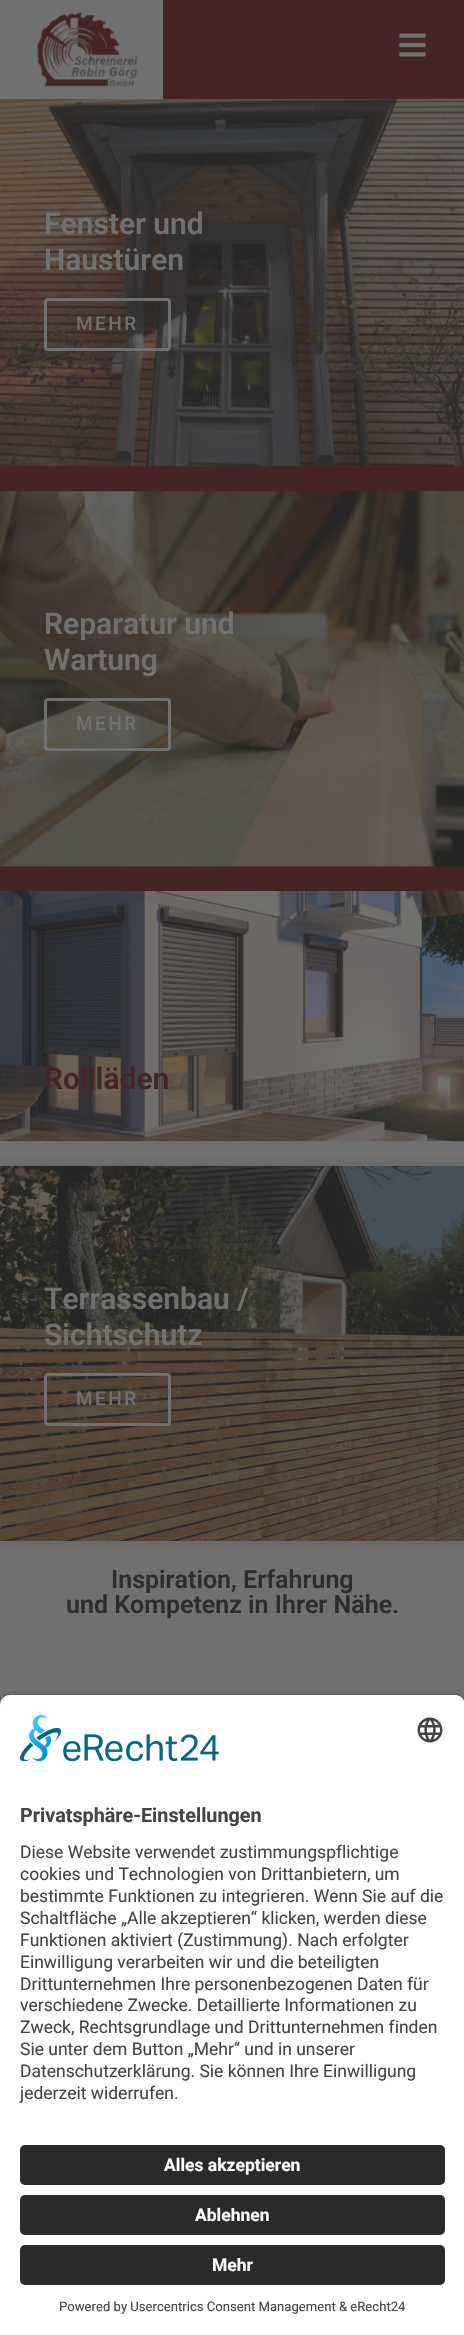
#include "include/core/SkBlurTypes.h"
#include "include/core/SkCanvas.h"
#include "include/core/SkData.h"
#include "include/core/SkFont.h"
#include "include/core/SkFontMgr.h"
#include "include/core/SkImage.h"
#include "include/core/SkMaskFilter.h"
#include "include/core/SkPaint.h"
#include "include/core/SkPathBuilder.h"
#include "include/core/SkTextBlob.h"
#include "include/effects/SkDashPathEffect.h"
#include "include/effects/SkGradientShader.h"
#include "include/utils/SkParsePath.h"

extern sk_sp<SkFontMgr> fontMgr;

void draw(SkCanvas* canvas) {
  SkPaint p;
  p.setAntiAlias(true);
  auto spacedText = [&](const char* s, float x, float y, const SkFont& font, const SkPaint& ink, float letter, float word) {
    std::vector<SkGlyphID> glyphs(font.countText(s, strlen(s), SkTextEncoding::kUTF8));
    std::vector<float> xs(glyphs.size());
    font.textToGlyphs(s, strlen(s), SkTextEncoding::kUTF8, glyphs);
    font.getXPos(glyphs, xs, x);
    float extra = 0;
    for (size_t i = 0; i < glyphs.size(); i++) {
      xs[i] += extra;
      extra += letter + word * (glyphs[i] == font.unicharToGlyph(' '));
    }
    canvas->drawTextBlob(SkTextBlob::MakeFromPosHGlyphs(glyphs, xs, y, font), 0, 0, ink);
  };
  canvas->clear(SkColorSetRGB(68, 36, 36));
  p.setColor(SkColorSetRGB(112, 112, 112));
  canvas->drawRect(SkRect::MakeLTRB(0, 0, 163, 99), p);
  canvas->drawImageRect(SkImages::DeferredFromEncodedData(SkData::MakeFromFileName("images/1.png")), SkRect::MakeLTRB(37, 12, 138, 87), SkSamplingOptions());
  canvas->drawImageRect(SkImages::DeferredFromEncodedData(SkData::MakeFromFileName("images/2.png")), SkRect::MakeLTRB(399, 33, 426, 57), SkSamplingOptions());
  canvas->drawImageRect(SkImages::DeferredFromEncodedData(SkData::MakeFromFileName("images/3.png")), SkRect::MakeLTRB(0, 99, 464, 467), SkSamplingOptions());
  p.setColor(SkColorSetARGB(48, 36, 36, 36));
  canvas->drawRect(SkRect::MakeLTRB(0, 99, 464, 466), p);
  p.setStyle(SkPaint::kStroke_Style);
  p.setStrokeWidth(3);
  p.setColor(SkColorSetRGB(112, 112, 112));
  canvas->drawRoundRect(SkRect::MakeLTRB(45.5f, 299.5f, 169.5f, 349.5f), 2.5f, 2.5f, p);
  canvas->drawImageRect(SkImages::DeferredFromEncodedData(SkData::MakeFromFileName("images/4.png")), SkRect::MakeLTRB(0, 491, 464, 867), SkSamplingOptions());
  p.setStyle(SkPaint::kFill_Style);
  p.setColor(SkColorSetARGB(48, 36, 36, 36));
  canvas->drawRect(SkRect::MakeLTRB(0, 491, 464, 866), p);
  p.setStyle(SkPaint::kStroke_Style);
  p.setColor(SkColorSetRGB(112, 112, 112));
  canvas->drawRoundRect(SkRect::MakeLTRB(45.5f, 699.5f, 169.5f, 749.5f), 2.5f, 2.5f, p);
  p.setStyle(SkPaint::kFill_Style);
  canvas->drawRect(SkRect::MakeLTRB(0, 1141, 464, 1705), p);
  canvas->drawImageRect(SkImages::DeferredFromEncodedData(SkData::MakeFromFileName("images/5.png")), SkRect::MakeLTRB(0, 891, 464, 1142), SkSamplingOptions());
  p.setColor(SkColorSetARGB(51, 36, 36, 36));
  p.setMaskFilter(SkMaskFilter::MakeBlur(kNormal_SkBlurStyle, 6));
  canvas->drawRect(SkRect::MakeLTRB(0, 1166, 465, 1541), p);
  p.setMaskFilter(nullptr);
  canvas->drawImageRect(SkImages::DeferredFromEncodedData(SkData::MakeFromFileName("images/6.png")), SkRect::MakeLTRB(0, 1166, 464, 1541), SkSamplingOptions());
  p.setColor(SkColorSetARGB(48, 36, 36, 36));
  canvas->drawRect(SkRect::MakeLTRB(0, 1166, 464, 1541), p);
  p.setStyle(SkPaint::kStroke_Style);
  p.setColor(SkColorSetRGB(112, 112, 112));
  canvas->drawRoundRect(SkRect::MakeLTRB(45.5f, 1374.5f, 169.5f, 1424.5f), 2.5f, 2.5f, p);
  p.setStyle(SkPaint::kFill_Style);
  p.setColor(SkColorSetARGB(204, 0, 0, 0));
  p.setMaskFilter(SkMaskFilter::MakeBlur(kNormal_SkBlurStyle, 4.5f));
  canvas->drawRoundRect(SkRect::MakeLTRB(0, 1699, 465, 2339), 10, 10, p);
  p.setMaskFilter(nullptr);
  p.setColor(SK_ColorWHITE);
  canvas->drawPath(SkPathBuilder().moveTo(10, 1695).lineTo(455, 1695).cubicTo(460.5f, 1695, 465, 1699.5f, 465, 1705).lineTo(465, 2130).lineTo(0, 2130).lineTo(0, 1705).cubicTo(0, 1699.5f, 4.5f, 1695, 10, 1695).close().detach(), p);
  canvas->drawImageRect(SkImages::DeferredFromEncodedData(SkData::MakeFromFileName("images/7.png")), SkRect::MakeLTRB(20, 1715, 219, 1762), SkSamplingOptions());
  canvas->drawImageRect(SkImages::DeferredFromEncodedData(SkData::MakeFromFileName("images/8.png")), SkRect::MakeLTRB(417, 1717, 443, 1743), SkSamplingOptions());
  canvas->drawRect(SkRect::MakeLTRB(0, 2130, 464, 2335), p);
  p.setColor(SkColorSetRGB(41, 42, 43));
  canvas->drawRoundRect(SkRect::MakeLTRB(20, 2145, 445, 2185), 5, 5, p);
  canvas->drawRoundRect(SkRect::MakeLTRB(20, 2195, 445, 2235), 5, 5, p);
  canvas->drawRoundRect(SkRect::MakeLTRB(20, 2245, 445, 2285), 5, 5, p);
  SkFont font1(fontMgr->matchFamilyStyle("Roboto", SkFontStyle(600, SkFontStyle::kNormal_Width, SkFontStyle::kUpright_Slant)), 30);
  font1.setSubpixel(true);
  p.setColor(SkColorSetRGB(112, 112, 112));
  canvas->drawString("Fenster und", 44, 234, font1, p);
  canvas->drawString("Haustüren", 44, 270, font1, p);
  SkFont font2(fontMgr->matchFamilyStyle("Roboto", SkFontStyle(500, SkFontStyle::kNormal_Width, SkFontStyle::kUpright_Slant)), 19);
  font2.setSubpixel(true);
  spacedText("MEHR", 76, 330, font2, p, 2.5f, 0);
  canvas->drawString("Reparatur und", 44, 634, font1, p);
  canvas->drawString("Wartung", 44, 670, font1, p);
  spacedText("MEHR", 76, 730, font2, p, 2.5f, 0);
  p.setColor(SkColorSetRGB(68, 36, 36));
  canvas->drawString("Rollläden", 44, 1089, font1, p);
  p.setColor(SkColorSetRGB(112, 112, 112));
  canvas->drawString("Terrassenbau /", 44, 1309, font1, p);
  canvas->drawString("Sichtschutz", 44, 1345, font1, p);
  spacedText("MEHR", 76, 1405, font2, p, 2.5f, 0);
  SkFont font3(fontMgr->matchFamilyStyle("Roboto", SkFontStyle(600, SkFontStyle::kNormal_Width, SkFontStyle::kUpright_Slant)), 25);
  font3.setSubpixel(true);
  p.setColor(SkColorSetRGB(45, 45, 45));
  canvas->drawString("Inspiration, Erfahrung", 111, 1588, font3, p);
  canvas->drawString("und Kompetenz in Ihrer Nähe.", 66, 1613, font3, p);
  SkFont font4(fontMgr->matchFamilyStyle("Roboto", SkFontStyle::Bold()), 19.75f);
  font4.setSubpixel(true);
  p.setColor(SkColorSetRGB(68, 68, 68));
  canvas->drawString("Privatsphäre-Einstellungen", 20, 1822, font4, p);
  SkFont font5(fontMgr->matchFamilyStyle("Roboto", SkFontStyle::Normal()), 17.5f);
  font5.setSubpixel(true);
  canvas->drawString("Diese Website verwendet zustimmungspflichtige", 20, 1858, font5, p);
  canvas->drawString("cookies und Technologien von Drittanbietern, um", 20, 1880, font5, p);
  canvas->drawString("bestimmte Funktionen zu integrieren. Wenn Sie auf die", 20, 1902, font5, p);
  canvas->drawString("Schaltfläche „Alle akzeptieren“ klicken, werden diese", 20, 1924, font5, p);
  canvas->drawString("Funktionen aktiviert (Zustimmung). Nach erfolgter", 20, 1946, font5, p);
  canvas->drawString("Einwilligung verarbeiten wir und die beteiligten", 20, 1968, font5, p);
  canvas->drawString("Drittunternehmen Ihre personenbezogenen Daten für", 20, 1990, font5, p);
  canvas->drawString("verschiedene Zwecke. Detaillierte Informationen zu", 20, 2011, font5, p);
  canvas->drawString("Zweck, Rechtsgrundlage und Drittunternehmen finden", 20, 2033, font5, p);
  canvas->drawString("Sie unter dem Button „Mehr“ und in unserer", 20, 2055, font5, p);
  canvas->drawString("Datenschutzerklärung. Sie können Ihre Einwilligung", 20, 2077, font5, p);
  canvas->drawString("jederzeit widerrufen.", 20, 2099, font5, p);
  SkFont font6(fontMgr->matchFamilyStyle("Roboto", SkFontStyle::Bold()), 17.5f);
  font6.setSubpixel(true);
  p.setColor(SK_ColorWHITE);
  canvas->drawString("Alles akzeptieren", 164, 2171, font6, p);
  canvas->drawString("Ablehnen", 195, 2221, font6, p);
  canvas->drawString("Mehr", 212, 2271, font6, p);
  SkFont font7(fontMgr->matchFamilyStyle("Roboto", SkFontStyle::Normal()), 13.1f);
  font7.setSubpixel(true);
  p.setColor(SkColorSetRGB(68, 68, 68));
  canvas->drawString("Powered by Usercentrics Consent Management & eRecht24", 59, 2311, font7, p);
}
